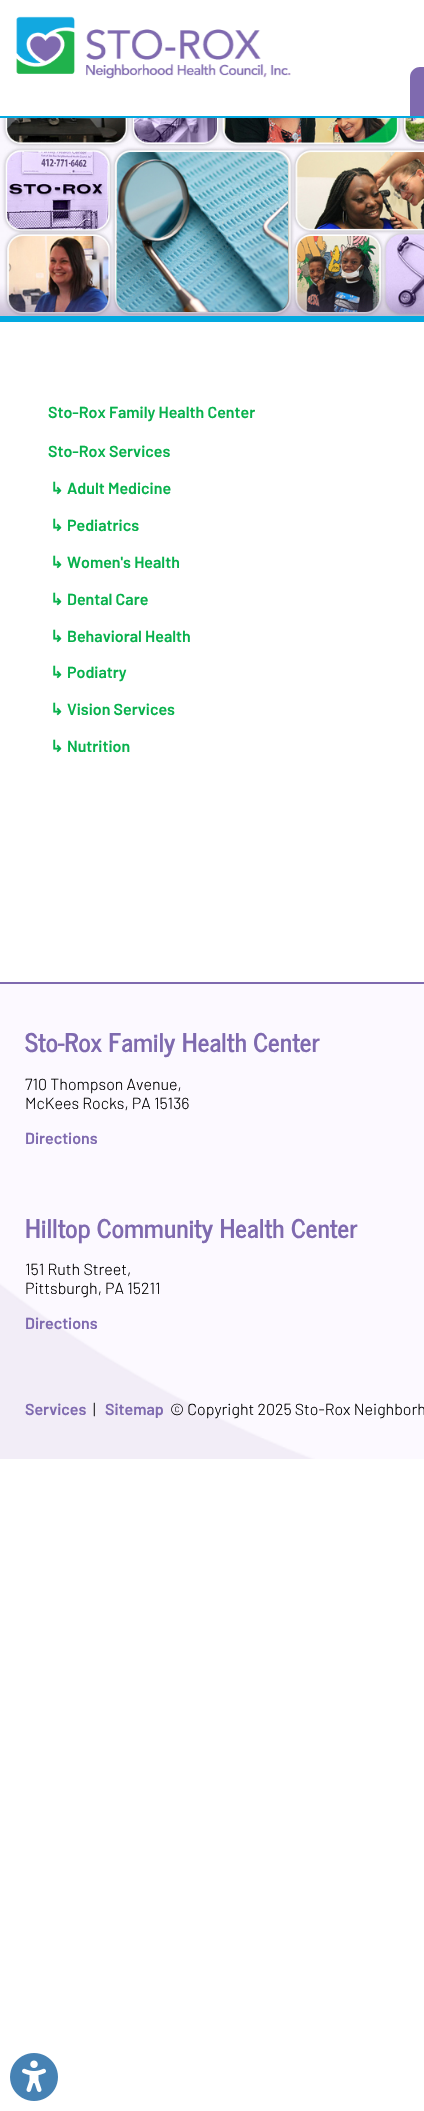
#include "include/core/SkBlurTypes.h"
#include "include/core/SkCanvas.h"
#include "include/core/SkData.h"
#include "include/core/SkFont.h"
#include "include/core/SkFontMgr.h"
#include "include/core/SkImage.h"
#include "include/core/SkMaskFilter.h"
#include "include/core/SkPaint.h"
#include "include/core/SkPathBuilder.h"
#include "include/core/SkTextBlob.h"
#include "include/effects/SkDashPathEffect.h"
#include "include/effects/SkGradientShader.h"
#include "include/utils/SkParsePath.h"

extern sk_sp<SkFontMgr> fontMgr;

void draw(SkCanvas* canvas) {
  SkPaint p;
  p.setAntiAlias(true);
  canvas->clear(SK_ColorWHITE);
  p.setColor(SkColorSetRGB(2, 169, 224));
  canvas->drawRect(SkRect::MakeLTRB(0, 116, 424, 118), p);
  canvas->drawImageRect(SkImages::DeferredFromEncodedData(SkData::MakeFromFileName("images/1.png")), SkRect::MakeLTRB(16, 16, 291, 79), SkSamplingOptions());
  p.setColor(SkColorSetRGB(127, 106, 175));
  canvas->drawPath(SkPathBuilder().moveTo(420, 67).lineTo(424, 67).cubicTo(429.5f, 67, 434, 71.5f, 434, 77).lineTo(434, 116).lineTo(410, 116).lineTo(410, 77).cubicTo(410, 71.5f, 414.5f, 67, 420, 67).close().detach(), p);
  canvas->drawImageRect(SkImages::DeferredFromEncodedData(SkData::MakeFromFileName("images/2.png")), SkRect::MakeLTRB(0, 118, 424, 316), SkSamplingOptions());
  p.setColor(SkColorSetRGB(2, 169, 224));
  canvas->drawRect(SkRect::MakeLTRB(0, 316, 424, 322), p);
  canvas->drawImageRect(SkImages::DeferredFromEncodedData(SkData::MakeFromFileName("images/3.png")), SkRect::MakeLTRB(0, 984, 424, 1459), SkSamplingOptions());
  p.setColor(SkColorSetRGB(127, 106, 175));
  canvas->drawRect(SkRect::MakeLTRB(0, 982, 424, 984), p);
  canvas->drawImageRect(SkImages::DeferredFromEncodedData(SkData::MakeFromFileName("images/4.png")), SkRect::MakeLTRB(10, 2053, 58, 2101), SkSamplingOptions());
  SkFont font1(fontMgr->matchFamilyStyle("Barlow", SkFontStyle(600, SkFontStyle::kNormal_Width, SkFontStyle::kUpright_Slant)), 16);
  font1.setSubpixel(true);
  p.setColor(SkColorSetRGB(7, 177, 76));
  canvas->drawString("Sto-Rox Family Health Center", 48, 418, font1, p);
  canvas->drawString("Sto-Rox Services", 48, 457, font1, p);
  SkFont font2(fontMgr->matchFamilyStyle("DejaVu Sans", SkFontStyle::Bold()), 16);
  font2.setSubpixel(true);
  canvas->drawString("↳", 50, 494, font2, p);
  canvas->drawString("Adult Medicine", 67, 494, font1, p);
  canvas->drawString("↳", 50, 531, font2, p);
  canvas->drawString("Pediatrics", 67, 531, font1, p);
  canvas->drawString("↳", 50, 568, font2, p);
  canvas->drawString("Women's Health", 67, 568, font1, p);
  canvas->drawString("↳", 50, 605, font2, p);
  canvas->drawString("Dental Care", 67, 605, font1, p);
  canvas->drawString("↳", 50, 642, font2, p);
  canvas->drawString("Behavioral Health", 67, 642, font1, p);
  canvas->drawString("↳", 50, 678, font2, p);
  canvas->drawString("Podiatry", 67, 678, font1, p);
  canvas->drawString("↳", 50, 715, font2, p);
  canvas->drawString("Vision Services", 67, 715, font1, p);
  canvas->drawString("↳", 50, 752, font2, p);
  canvas->drawString("Nutrition", 67, 752, font1, p);
  SkFont font3(fontMgr->matchFamilyStyle("News Cycle", SkFontStyle::Bold()), 25.6f);
  font3.setSubpixel(true);
  p.setColor(SkColorSetRGB(127, 106, 175));
  canvas->drawString("Sto-Rox Family Health Center", 25, 1052, font3, p);
  SkFont font4(fontMgr->matchFamilyStyle("Barlow", SkFontStyle(300, SkFontStyle::kNormal_Width, SkFontStyle::kUpright_Slant)), 16);
  font4.setSubpixel(true);
  p.setColor(SK_ColorBLACK);
  canvas->drawString("710 Thompson Avenue,", 25, 1090, font4, p);
  canvas->drawString("McKees Rocks, PA 15136", 25, 1109, font4, p);
  p.setColor(SkColorSetRGB(127, 106, 175));
  canvas->drawString("Directions", 25, 1144, font1, p);
  canvas->drawString("Hilltop Community Health Center", 25, 1238, font3, p);
  p.setColor(SK_ColorBLACK);
  canvas->drawString("151 Ruth Street,", 25, 1275, font4, p);
  canvas->drawString("Pittsburgh, PA 15211", 25, 1294, font4, p);
  p.setColor(SkColorSetRGB(127, 106, 175));
  canvas->drawString("Directions", 25, 1329, font1, p);
  canvas->drawString("Services", 25, 1415, font1, p);
  p.setColor(SK_ColorBLACK);
  canvas->drawString("|", 93, 1415, font4, p);
  p.setColor(SkColorSetRGB(127, 106, 175));
  canvas->drawString("Sitemap", 105, 1415, font1, p);
  p.setColor(SK_ColorBLACK);
  canvas->drawString("© Copyright 2025 Sto-Rox Neighborh", 170, 1415, font4, p);
}
